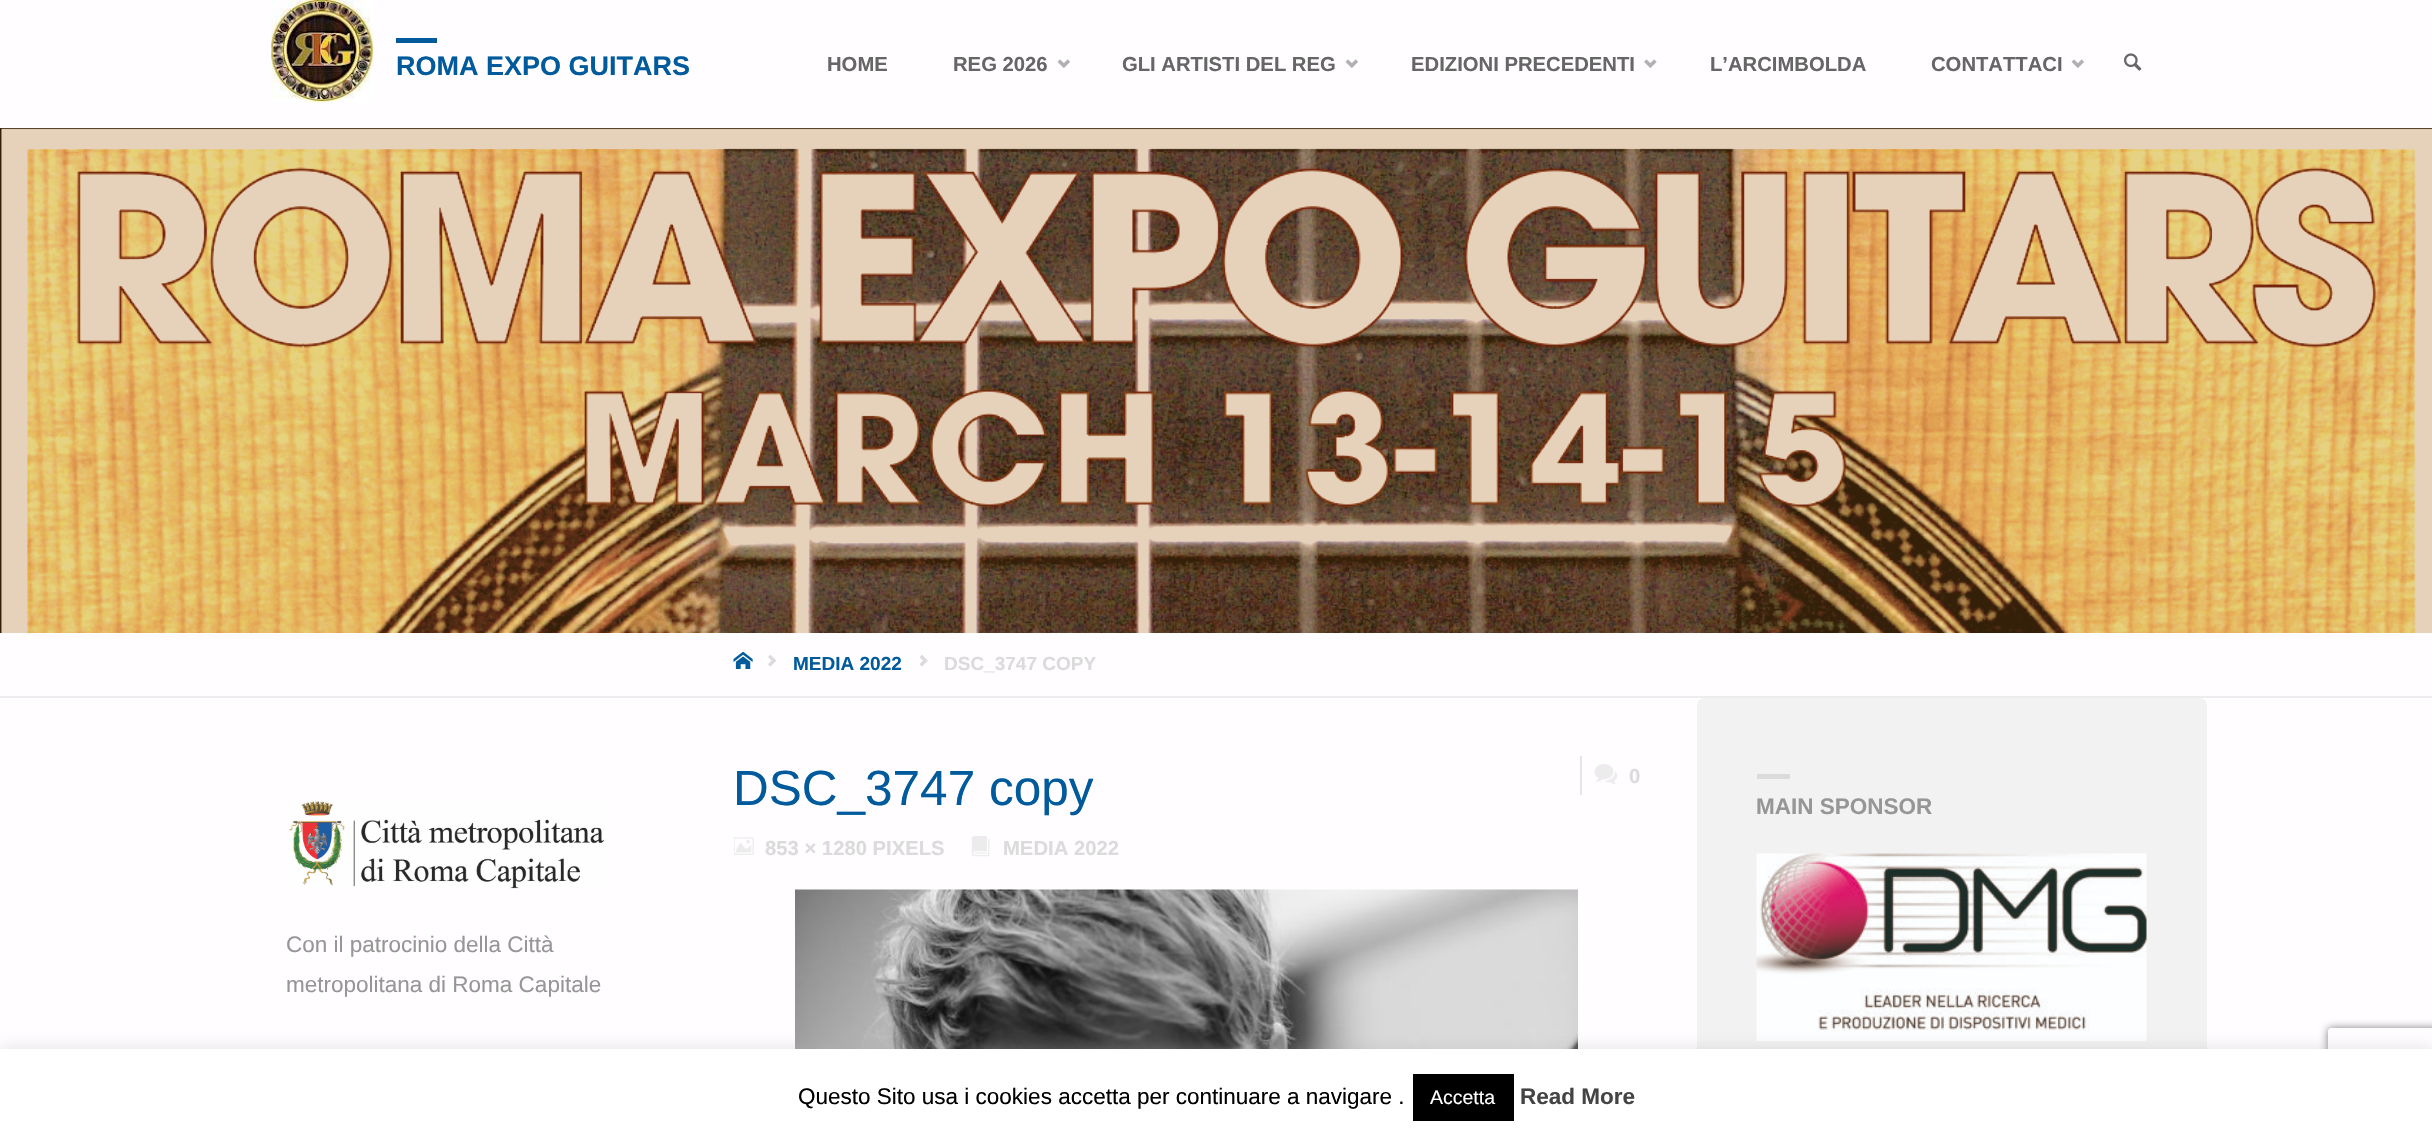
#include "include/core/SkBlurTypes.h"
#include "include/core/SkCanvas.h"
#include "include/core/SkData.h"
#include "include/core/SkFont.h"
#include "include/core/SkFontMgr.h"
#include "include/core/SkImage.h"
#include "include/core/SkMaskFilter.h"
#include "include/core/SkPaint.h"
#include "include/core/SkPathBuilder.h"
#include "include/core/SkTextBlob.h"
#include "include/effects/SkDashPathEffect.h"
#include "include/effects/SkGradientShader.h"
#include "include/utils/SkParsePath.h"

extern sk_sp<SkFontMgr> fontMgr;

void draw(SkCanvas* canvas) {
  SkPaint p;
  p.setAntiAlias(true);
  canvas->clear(SkColorSetRGB(255, 253, 255));
  canvas->drawImageRect(SkImages::DeferredFromEncodedData(SkData::MakeFromFileName("images/1.png")), SkRect::MakeLTRB(271, 0, 374, 102), SkSamplingOptions());
  p.setColor(SkColorSetRGB(0, 90, 155));
  canvas->drawRect(SkRect::MakeLTRB(396, 38, 437, 43), p);
  canvas->drawImageRect(SkImages::DeferredFromEncodedData(SkData::MakeFromFileName("images/2.png")), SkRect::MakeLTRB(1057, 59, 1070, 68), SkSamplingOptions());
  canvas->drawImageRect(SkImages::DeferredFromEncodedData(SkData::MakeFromFileName("images/2.png")), SkRect::MakeLTRB(1345, 59, 1358, 68), SkSamplingOptions());
  canvas->drawImageRect(SkImages::DeferredFromEncodedData(SkData::MakeFromFileName("images/3.png")), SkRect::MakeLTRB(1644, 59, 1657, 68), SkSamplingOptions());
  canvas->drawImageRect(SkImages::DeferredFromEncodedData(SkData::MakeFromFileName("images/2.png")), SkRect::MakeLTRB(2071, 59, 2084, 68), SkSamplingOptions());
  canvas->drawImageRect(SkImages::DeferredFromEncodedData(SkData::MakeFromFileName("images/4.png")), SkRect::MakeLTRB(2124, 53, 2142, 71), SkSamplingOptions());
  canvas->drawImageRect(SkImages::DeferredFromEncodedData(SkData::MakeFromFileName("images/5.png")), SkRect::MakeLTRB(0, 128, 2432, 633), SkSamplingOptions());
  p.setColor(SkColorSetRGB(238, 236, 238));
  canvas->drawRect(SkRect::MakeLTRB(0, 696, 2432, 698), p);
  canvas->drawImageRect(SkImages::DeferredFromEncodedData(SkData::MakeFromFileName("images/6.png")), SkRect::MakeLTRB(733, 651, 753, 669), SkSamplingOptions());
  canvas->drawImageRect(SkImages::DeferredFromEncodedData(SkData::MakeFromFileName("images/7.png")), SkRect::MakeLTRB(768, 654, 777, 667), SkSamplingOptions());
  canvas->drawImageRect(SkImages::DeferredFromEncodedData(SkData::MakeFromFileName("images/8.png")), SkRect::MakeLTRB(919, 655, 928, 667), SkSamplingOptions());
  p.setColor(SkColorSetRGB(230, 228, 230));
  canvas->drawRect(SkRect::MakeLTRB(1580, 756, 1582, 795), p);
  canvas->drawImageRect(SkImages::DeferredFromEncodedData(SkData::MakeFromFileName("images/9.png")), SkRect::MakeLTRB(1594, 764, 1618, 784), SkSamplingOptions());
  canvas->drawImageRect(SkImages::DeferredFromEncodedData(SkData::MakeFromFileName("images/10.png")), SkRect::MakeLTRB(734, 837, 754, 855), SkSamplingOptions());
  canvas->drawImageRect(SkImages::DeferredFromEncodedData(SkData::MakeFromFileName("images/11.png")), SkRect::MakeLTRB(971, 836, 990, 857), SkSamplingOptions());
  canvas->drawImageRect(SkImages::DeferredFromEncodedData(SkData::MakeFromFileName("images/12.png")), SkRect::MakeLTRB(795, 889, 1578, 1049), SkSamplingOptions());
  p.setColor(SkColorSetRGB(242, 242, 242));
  canvas->drawRoundRect(SkRect::MakeLTRB(1697, 698, 2207, 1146), 8, 8, p);
  p.setColor(SkColorSetRGB(219, 219, 219));
  canvas->drawRect(SkRect::MakeLTRB(1757, 774, 1790, 779), p);
  canvas->drawImageRect(SkImages::DeferredFromEncodedData(SkData::MakeFromFileName("images/13.png")), SkRect::MakeLTRB(1756, 853, 2147, 1041), SkSamplingOptions());
  canvas->drawImageRect(SkImages::DeferredFromEncodedData(SkData::MakeFromFileName("images/14.png")), SkRect::MakeLTRB(289, 800, 606, 890), SkSamplingOptions());
  p.setColor(SkColorSetARGB(77, 172, 171, 171));
  p.setMaskFilter(SkMaskFilter::MakeBlur(kNormal_SkBlurStyle, 7.5f));
  canvas->drawRect(SkRect::MakeLTRB(0, 1047, 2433, 1137), p);
  p.setMaskFilter(nullptr);
  canvas->save();
  canvas->clipPath(SkPathBuilder(SkPathFillType::kEvenOdd).moveTo(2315, 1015).lineTo(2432, 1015).lineTo(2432, 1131).lineTo(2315, 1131).close().moveTo(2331, 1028).lineTo(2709, 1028).cubicTo(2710.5f, 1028, 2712, 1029.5f, 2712, 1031).lineTo(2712, 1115).cubicTo(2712, 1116.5f, 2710.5f, 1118, 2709, 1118).lineTo(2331, 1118).cubicTo(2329.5f, 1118, 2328, 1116.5f, 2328, 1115).lineTo(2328, 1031).cubicTo(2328, 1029.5f, 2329.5f, 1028, 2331, 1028).close().detach(), true);
  p.setColor(SkColorSetRGB(128, 128, 128));
  p.setMaskFilter(SkMaskFilter::MakeBlur(kNormal_SkBlurStyle, 4));
  canvas->drawRoundRect(SkRect::MakeLTRB(2328, 1028, 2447, 1118), 3, 3, p);
  p.setMaskFilter(nullptr);
  canvas->restore();
  p.setColor(SK_ColorWHITE);
  canvas->drawRect(SkRect::MakeLTRB(0, 1049, 2432, 1138), p);
  p.setColor(SK_ColorBLACK);
  canvas->drawRect(SkRect::MakeLTRB(1413, 1074, 1514, 1121), p);
  SkFont font1(fontMgr->matchFamilyStyle("Liberation Sans", SkFontStyle::Bold()), 27);
  font1.setSubpixel(true);
  p.setColor(SkColorSetRGB(0, 90, 155));
  canvas->drawString("ROMA EXPO GUITARS", 396, 75, font1, p);
  SkFont font2(fontMgr->matchFamilyStyle("Liberation Sans", SkFontStyle::Bold()), 20.25f);
  font2.setSubpixel(true);
  p.setColor(SkColorSetRGB(102, 102, 102));
  canvas->drawString("HOME", 827, 71, font2, p);
  canvas->drawString("REG 2026", 953, 71, font2, p);
  canvas->drawString("GLI ARTISTI DEL REG", 1122, 71, font2, p);
  canvas->drawString("EDIZIONI PRECEDENTI", 1411, 71, font2, p);
  canvas->drawString("L’ARCIMBOLDA", 1710, 71, font2, p);
  canvas->drawString("CONTATTACI", 1931, 71, font2, p);
  SkFont font3(fontMgr->matchFamilyStyle("Liberation Sans", SkFontStyle::Bold()), 19);
  font3.setSubpixel(true);
  p.setColor(SkColorSetRGB(0, 90, 155));
  canvas->drawString("MEDIA 2022", 793, 670, font3, p);
  p.setColor(SkColorSetRGB(219, 219, 219));
  canvas->drawString("DSC_3747 COPY", 944, 670, font3, p);
  canvas->drawString("0", 1629, 783, font2, p);
  canvas->drawString("853 × 1280 PIXELS", 765, 855, font2, p);
  canvas->drawString("MEDIA 2022", 1003, 855, font2, p);
  SkFont font4(fontMgr->matchFamilyStyle("Liberation Sans", SkFontStyle::Normal()), 49.5f);
  font4.setSubpixel(true);
  p.setColor(SkColorSetRGB(0, 90, 155));
  canvas->drawString("DSC_3747 copy", 733, 805, font4, p);
  SkFont font5(fontMgr->matchFamilyStyle("Liberation Sans", SkFontStyle::Bold()), 22.5f);
  font5.setSubpixel(true);
  p.setColor(SkColorSetRGB(150, 150, 150));
  canvas->drawString("MAIN SPONSOR", 1756, 814, font5, p);
  SkFont font6(fontMgr->matchFamilyStyle("Liberation Sans", SkFontStyle::Normal()), 22.5f);
  font6.setSubpixel(true);
  canvas->drawString("Con il patrocinio della Città", 286, 952, font6, p);
  canvas->drawString("metropolitana di Roma Capitale", 286, 992, font6, p);
  p.setColor(SK_ColorBLACK);
  canvas->drawString("Questo Sito usa i cookies accetta per continuare a navigare .", 798, 1104, font6, p);
  SkFont font7(fontMgr->matchFamilyStyle("Liberation Sans", SkFontStyle::Normal()), 19.5f);
  font7.setSubpixel(true);
  p.setColor(SK_ColorWHITE);
  canvas->drawString("Accetta", 1430, 1104, font7, p);
  p.setColor(SkColorSetRGB(68, 68, 68));
  canvas->drawString("Read More", 1520, 1104, font5, p);
}
